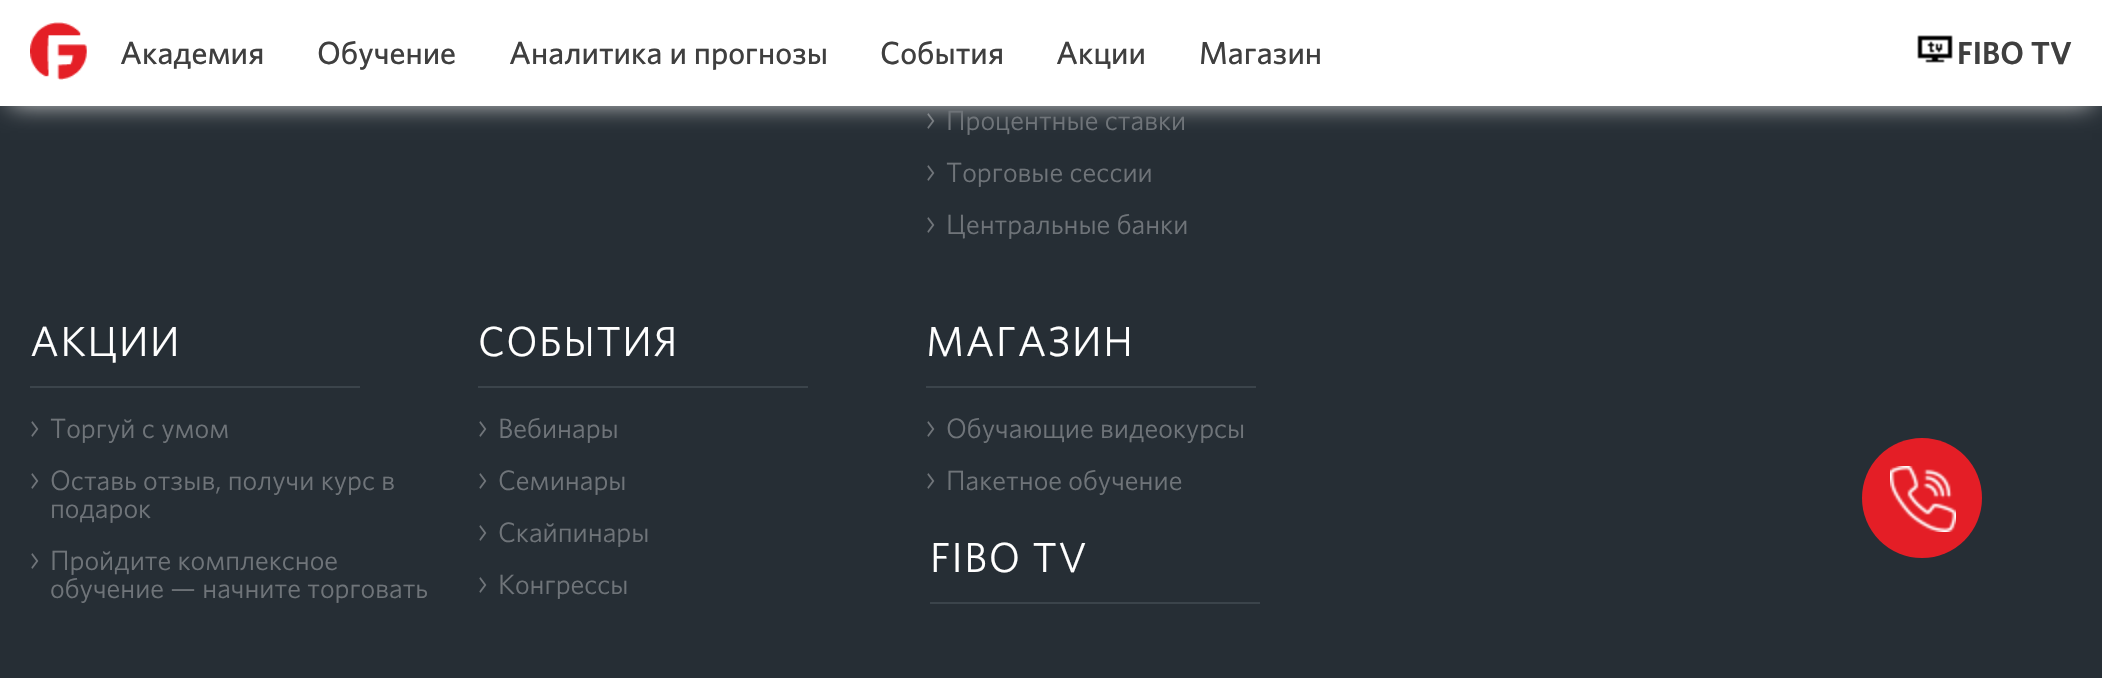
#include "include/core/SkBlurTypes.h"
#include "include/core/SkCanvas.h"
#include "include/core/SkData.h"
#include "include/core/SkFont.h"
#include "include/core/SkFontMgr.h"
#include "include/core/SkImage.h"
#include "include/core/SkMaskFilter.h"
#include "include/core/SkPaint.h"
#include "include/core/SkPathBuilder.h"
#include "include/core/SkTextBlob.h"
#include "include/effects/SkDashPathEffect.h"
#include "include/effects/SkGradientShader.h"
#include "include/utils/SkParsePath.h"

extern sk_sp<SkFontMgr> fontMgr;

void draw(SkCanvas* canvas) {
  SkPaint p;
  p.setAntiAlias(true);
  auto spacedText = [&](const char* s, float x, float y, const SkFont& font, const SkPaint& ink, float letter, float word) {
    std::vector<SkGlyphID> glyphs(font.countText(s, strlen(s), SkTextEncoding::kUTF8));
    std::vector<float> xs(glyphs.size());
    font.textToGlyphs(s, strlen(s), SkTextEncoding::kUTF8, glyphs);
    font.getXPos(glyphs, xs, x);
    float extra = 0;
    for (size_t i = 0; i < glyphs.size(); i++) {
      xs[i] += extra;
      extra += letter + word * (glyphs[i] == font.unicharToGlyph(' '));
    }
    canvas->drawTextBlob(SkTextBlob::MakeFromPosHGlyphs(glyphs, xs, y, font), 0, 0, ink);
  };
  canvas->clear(SkColorSetRGB(38, 46, 53));
  canvas->drawImageRect(SkImages::DeferredFromEncodedData(SkData::MakeFromFileName("images/3.png")), SkRect::MakeLTRB(927, 113, 935, 129), SkSamplingOptions());
  p.setColor(SkColorSetRGB(220, 220, 220));
  p.setMaskFilter(SkMaskFilter::MakeBlur(kNormal_SkBlurStyle, 12));
  canvas->drawRect(SkRect::MakeLTRB(10, 18, 2092, 104), p);
  p.setMaskFilter(nullptr);
  p.setColor(SK_ColorWHITE);
  canvas->drawRect(SkRect::MakeLTRB(0, 0, 2102, 106), p);
  canvas->drawImageRect(SkImages::DeferredFromEncodedData(SkData::MakeFromFileName("images/1.png")), SkRect::MakeLTRB(30, 22, 87, 80), SkSamplingOptions());
  canvas->drawImageRect(SkImages::DeferredFromEncodedData(SkData::MakeFromFileName("images/2.png")), SkRect::MakeLTRB(1917, 35, 1953, 63), SkSamplingOptions());
  canvas->drawImageRect(SkImages::DeferredFromEncodedData(SkData::MakeFromFileName("images/3.png")), SkRect::MakeLTRB(927, 165, 935, 181), SkSamplingOptions());
  canvas->drawImageRect(SkImages::DeferredFromEncodedData(SkData::MakeFromFileName("images/3.png")), SkRect::MakeLTRB(927, 217, 935, 233), SkSamplingOptions());
  p.setColor(SkColorSetRGB(59, 68, 75));
  canvas->drawRect(SkRect::MakeLTRB(30, 386, 360, 388), p);
  canvas->drawImageRect(SkImages::DeferredFromEncodedData(SkData::MakeFromFileName("images/3.png")), SkRect::MakeLTRB(31, 421, 39, 437), SkSamplingOptions());
  canvas->drawImageRect(SkImages::DeferredFromEncodedData(SkData::MakeFromFileName("images/3.png")), SkRect::MakeLTRB(31, 473, 39, 489), SkSamplingOptions());
  canvas->drawImageRect(SkImages::DeferredFromEncodedData(SkData::MakeFromFileName("images/3.png")), SkRect::MakeLTRB(31, 553, 39, 569), SkSamplingOptions());
  canvas->drawRect(SkRect::MakeLTRB(478, 386, 808, 388), p);
  canvas->drawImageRect(SkImages::DeferredFromEncodedData(SkData::MakeFromFileName("images/3.png")), SkRect::MakeLTRB(479, 421, 487, 437), SkSamplingOptions());
  canvas->drawImageRect(SkImages::DeferredFromEncodedData(SkData::MakeFromFileName("images/3.png")), SkRect::MakeLTRB(479, 473, 487, 489), SkSamplingOptions());
  canvas->drawImageRect(SkImages::DeferredFromEncodedData(SkData::MakeFromFileName("images/3.png")), SkRect::MakeLTRB(479, 525, 487, 541), SkSamplingOptions());
  canvas->drawImageRect(SkImages::DeferredFromEncodedData(SkData::MakeFromFileName("images/3.png")), SkRect::MakeLTRB(479, 577, 487, 593), SkSamplingOptions());
  canvas->drawRect(SkRect::MakeLTRB(926, 386, 1256, 388), p);
  canvas->drawImageRect(SkImages::DeferredFromEncodedData(SkData::MakeFromFileName("images/3.png")), SkRect::MakeLTRB(927, 421, 935, 437), SkSamplingOptions());
  canvas->drawImageRect(SkImages::DeferredFromEncodedData(SkData::MakeFromFileName("images/3.png")), SkRect::MakeLTRB(927, 473, 935, 489), SkSamplingOptions());
  canvas->drawRect(SkRect::MakeLTRB(930, 602, 1260, 604), p);
  p.setColor(SkColorSetRGB(228, 30, 38));
  canvas->drawCircle(1922, 498, 60, p);
  canvas->drawImageRect(SkImages::DeferredFromEncodedData(SkData::MakeFromFileName("images/4.png")), SkRect::MakeLTRB(1890, 466, 1956, 532), SkSamplingOptions());
  SkFont font1(fontMgr->matchFamilyStyle("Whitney", SkFontStyle(500, SkFontStyle::kNormal_Width, SkFontStyle::kUpright_Slant)), 32);
  font1.setSubpixel(true);
  p.setColor(SkColorSetRGB(63, 63, 63));
  canvas->drawString("Академия", 120, 64, font1, p);
  canvas->drawString("Обучение", 317, 64, font1, p);
  canvas->drawString("Аналитика и прогнозы", 509, 64, font1, p);
  canvas->drawString("События", 880, 64, font1, p);
  canvas->drawString("Акции", 1056, 64, font1, p);
  canvas->drawString("Магазин", 1199, 64, font1, p);
  SkFont font2(fontMgr->matchFamilyStyle("Whitney", SkFontStyle(600, SkFontStyle::kNormal_Width, SkFontStyle::kUpright_Slant)), 32);
  font2.setSubpixel(true);
  canvas->drawString("FIBO TV", 1957, 64, font2, p);
  SkFont font3(fontMgr->matchFamilyStyle("Whitney", SkFontStyle::Normal()), 28);
  font3.setSubpixel(true);
  p.setColor(SkColorSetRGB(111, 116, 121));
  canvas->drawString("Процентные ставки", 946, 130, font3, p);
  canvas->drawString("Торговые сессии", 946, 182, font3, p);
  canvas->drawString("Центральные банки", 946, 234, font3, p);
  SkFont font4(fontMgr->matchFamilyStyle("Whitney", SkFontStyle::Normal()), 42);
  font4.setSubpixel(true);
  p.setColor(SK_ColorWHITE);
  spacedText("АКЦИИ", 30, 356, font4, p, 1.5f, 0);
  p.setColor(SkColorSetRGB(111, 116, 121));
  canvas->drawString("Торгуй с умом", 50, 438, font3, p);
  canvas->drawString("Оставь отзыв, получи курс в", 50, 490, font3, p);
  canvas->drawString("подарок", 50, 518, font3, p);
  canvas->drawString("Пройдите комплексное", 50, 570, font3, p);
  canvas->drawString("обучение — начните торговать", 50, 598, font3, p);
  p.setColor(SK_ColorWHITE);
  spacedText("СОБЫТИЯ", 478, 356, font4, p, 1.5f, 0);
  p.setColor(SkColorSetRGB(111, 116, 121));
  canvas->drawString("Вебинары", 498, 438, font3, p);
  canvas->drawString("Семинары", 498, 490, font3, p);
  canvas->drawString("Скайпинары", 498, 542, font3, p);
  canvas->drawString("Конгрессы", 498, 594, font3, p);
  p.setColor(SK_ColorWHITE);
  spacedText("МАГАЗИН", 926, 356, font4, p, 1.5f, 0);
  p.setColor(SkColorSetRGB(111, 116, 121));
  canvas->drawString("Обучающие видеокурсы", 946, 438, font3, p);
  canvas->drawString("Пакетное обучение", 946, 490, font3, p);
  p.setColor(SK_ColorWHITE);
  spacedText("FIBO TV", 930, 572, font4, p, 1.5f, 0);
}
